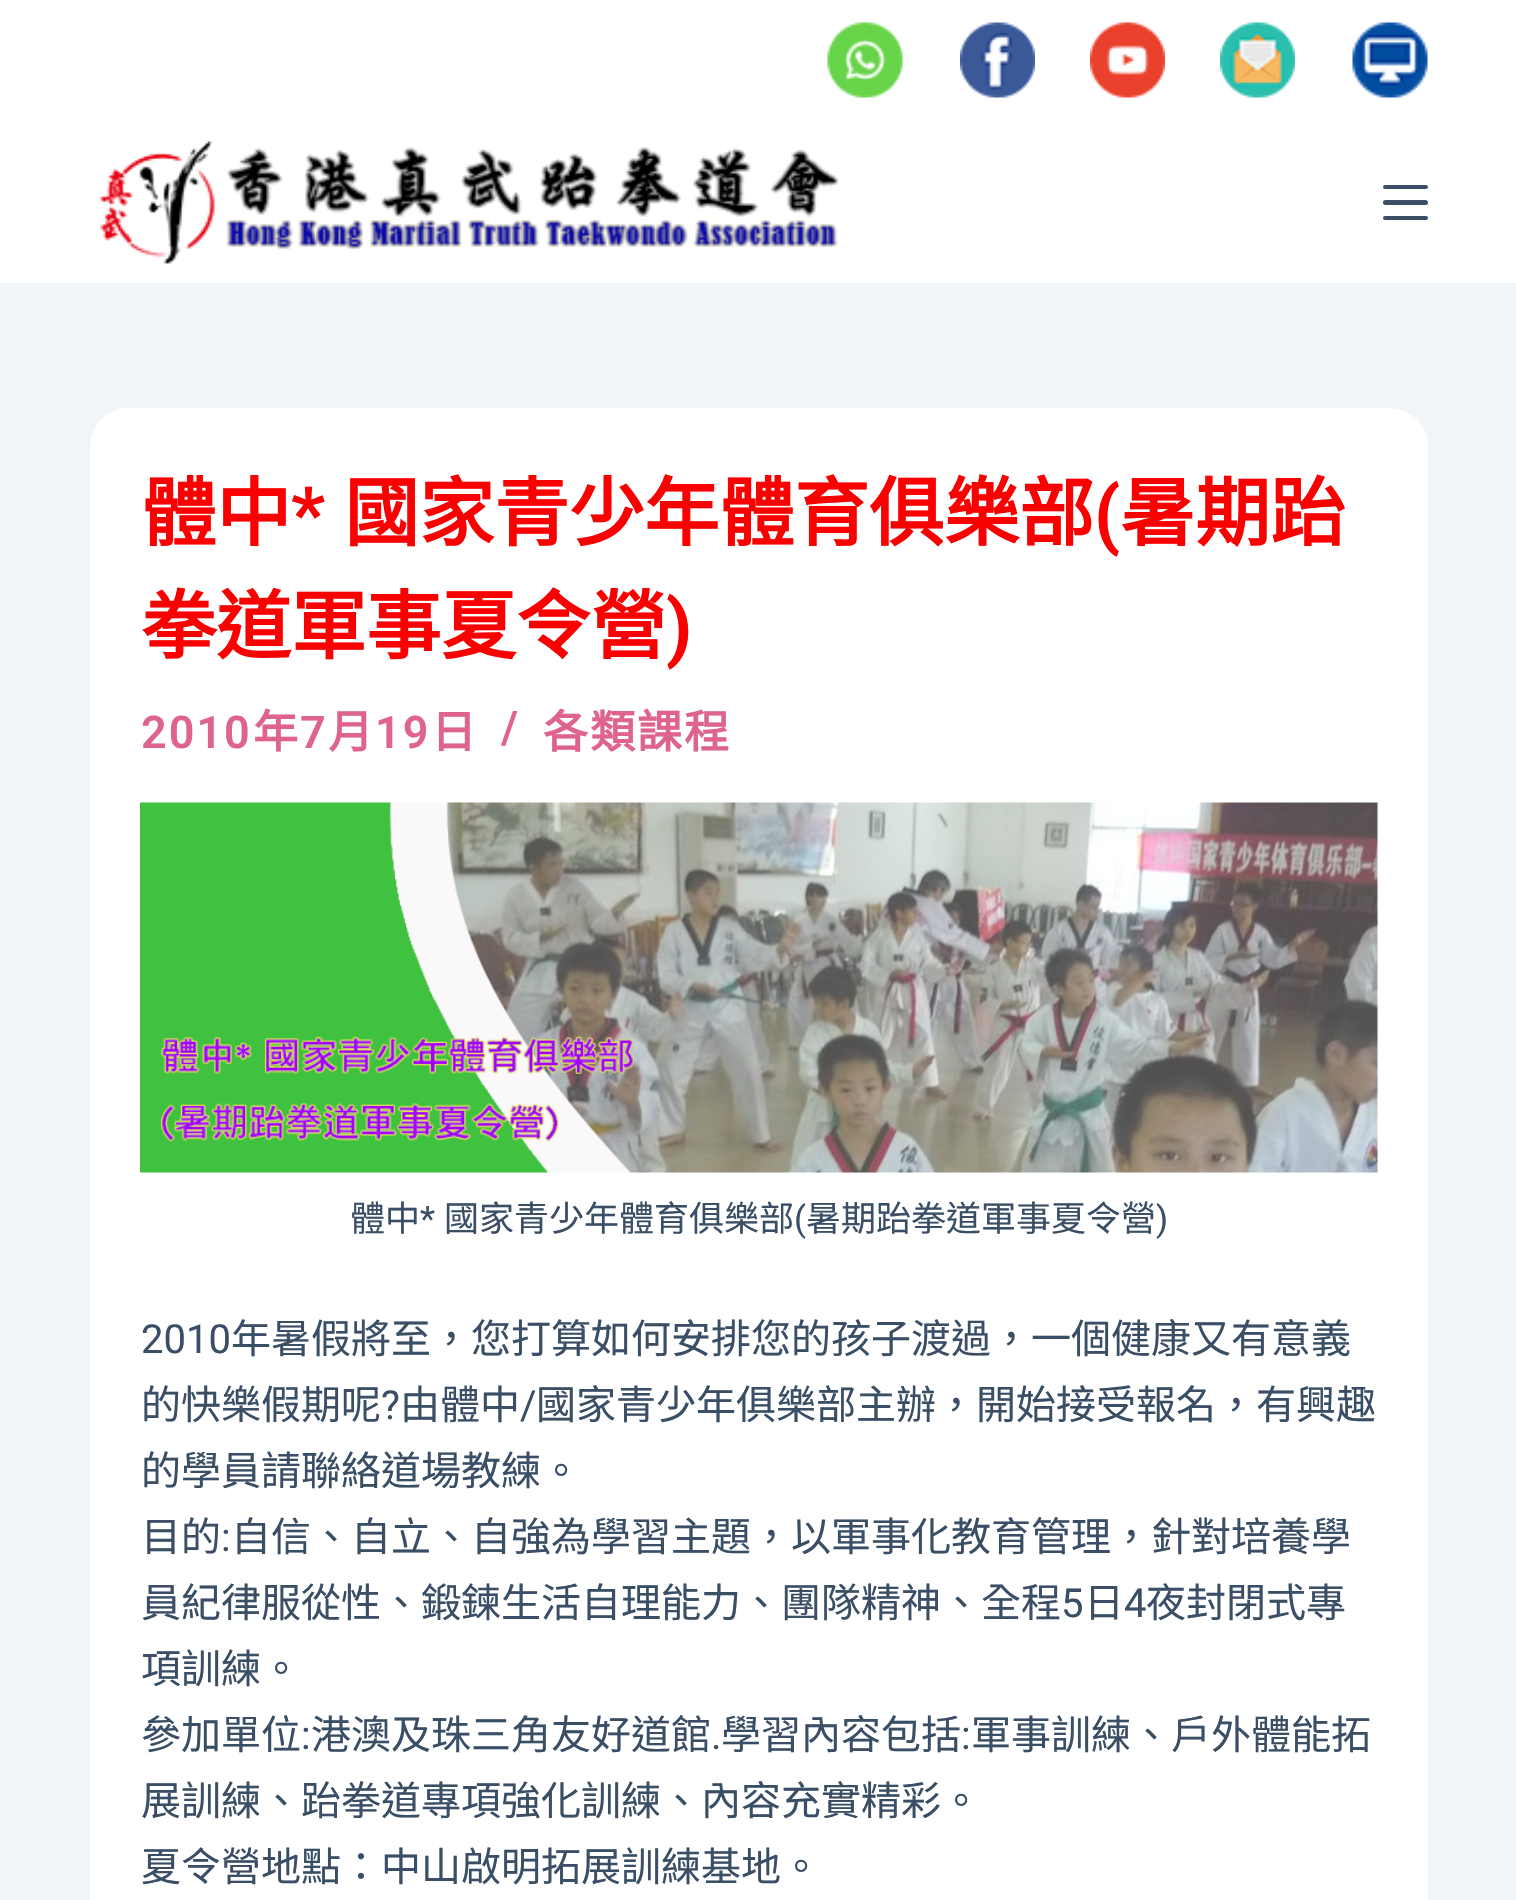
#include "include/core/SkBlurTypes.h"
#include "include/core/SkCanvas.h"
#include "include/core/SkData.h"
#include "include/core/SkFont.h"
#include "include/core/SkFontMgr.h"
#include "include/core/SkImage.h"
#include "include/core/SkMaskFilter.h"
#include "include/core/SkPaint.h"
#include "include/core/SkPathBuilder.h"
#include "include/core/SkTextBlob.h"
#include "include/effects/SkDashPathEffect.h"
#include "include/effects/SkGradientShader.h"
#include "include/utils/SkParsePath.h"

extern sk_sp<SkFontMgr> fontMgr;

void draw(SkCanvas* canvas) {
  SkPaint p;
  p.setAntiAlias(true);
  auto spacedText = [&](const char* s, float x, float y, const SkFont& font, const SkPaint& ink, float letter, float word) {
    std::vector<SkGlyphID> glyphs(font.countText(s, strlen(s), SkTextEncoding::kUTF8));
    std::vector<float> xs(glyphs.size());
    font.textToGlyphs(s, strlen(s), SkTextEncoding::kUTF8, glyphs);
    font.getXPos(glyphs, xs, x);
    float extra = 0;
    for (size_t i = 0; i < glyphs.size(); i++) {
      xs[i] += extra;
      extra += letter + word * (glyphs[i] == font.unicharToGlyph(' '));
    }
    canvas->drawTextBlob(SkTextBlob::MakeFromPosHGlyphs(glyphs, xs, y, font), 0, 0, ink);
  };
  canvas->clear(SkColorSetRGB(242, 245, 247));
  p.setColor(SK_ColorWHITE);
  canvas->drawRect(SkRect::MakeLTRB(0, 0, 1516, 283), p);
  canvas->drawImageRect(SkImages::DeferredFromEncodedData(SkData::MakeFromFileName("images/1.png")), SkRect::MakeLTRB(100, 140, 840, 264), SkSamplingOptions());
  p.setColor(SkColorSetRGB(58, 79, 102));
  canvas->drawRoundRect(SkRect::MakeLTRB(1383, 185, 1428, 189), 2, 2, p);
  canvas->drawRoundRect(SkRect::MakeLTRB(1383, 200, 1428, 205), 2.5f, 2.5f, p);
  canvas->drawRoundRect(SkRect::MakeLTRB(1383, 216, 1428, 220), 2, 2, p);
  canvas->drawImageRect(SkImages::DeferredFromEncodedData(SkData::MakeFromFileName("images/2.png")), SkRect::MakeLTRB(827, 22, 903, 98), SkSamplingOptions());
  canvas->drawImageRect(SkImages::DeferredFromEncodedData(SkData::MakeFromFileName("images/3.png")), SkRect::MakeLTRB(960, 22, 1035, 98), SkSamplingOptions());
  canvas->drawImageRect(SkImages::DeferredFromEncodedData(SkData::MakeFromFileName("images/4.png")), SkRect::MakeLTRB(1090, 22, 1165, 98), SkSamplingOptions());
  canvas->drawImageRect(SkImages::DeferredFromEncodedData(SkData::MakeFromFileName("images/5.png")), SkRect::MakeLTRB(1220, 22, 1295, 98), SkSamplingOptions());
  canvas->drawImageRect(SkImages::DeferredFromEncodedData(SkData::MakeFromFileName("images/6.png")), SkRect::MakeLTRB(1352, 22, 1428, 98), SkSamplingOptions());
  p.setColor(SK_ColorWHITE);
  canvas->drawRoundRect(SkRect::MakeLTRB(90, 408, 1428, 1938), 38, 38, p);
  canvas->drawImageRect(SkImages::DeferredFromEncodedData(SkData::MakeFromFileName("images/7.png")), SkRect::MakeLTRB(140, 802, 1378, 1173), SkSamplingOptions());
  SkFont font1(fontMgr->matchFamilyStyle("Noto Sans CJK HK", SkFontStyle::Bold()), 75);
  font1.setSubpixel(true);
  p.setColor(SkColorSetRGB(249, 1, 1));
  canvas->drawString("體中", 141, 540, font1, p);
  SkFont font2(fontMgr->matchFamilyStyle("Roboto", SkFontStyle::Bold()), 75);
  font2.setSubpixel(true);
  canvas->drawString("*", 291, 540, font2, p);
  canvas->drawString("國家青少年體育俱樂部", 344, 540, font1, p);
  canvas->drawString("(", 1094, 540, font2, p);
  canvas->drawString("暑期跆", 1120, 540, font1, p);
  canvas->drawString("拳道軍事夏令營", 141, 653, font1, p);
  canvas->drawString(")", 666, 653, font2, p);
  SkFont font3(fontMgr->matchFamilyStyle("Roboto", SkFontStyle(600, SkFontStyle::kNormal_Width, SkFontStyle::kUpright_Slant)), 45);
  font3.setSubpixel(true);
  p.setColor(SkColorSetRGB(223, 100, 139));
  spacedText("2010", 141, 748, font3, p, 2, 0);
  SkFont font4(fontMgr->matchFamilyStyle("Noto Sans CJK HK", SkFontStyle::Bold()), 45);
  font4.setSubpixel(true);
  spacedText("年", 253, 748, font4, p, 2, 0);
  spacedText("7", 300, 748, font3, p, 2, 0);
  spacedText("月", 328, 748, font4, p, 2, 0);
  spacedText("19", 375, 748, font3, p, 2, 0);
  spacedText("日", 431, 748, font4, p, 2, 0);
  spacedText("/", 501, 743, font3, p, 2, 0);
  spacedText("各類課程", 543, 748, font4, p, 2, 0);
  SkFont font5(fontMgr->matchFamilyStyle("Noto Sans CJK HK", SkFontStyle::Normal()), 35);
  font5.setSubpixel(true);
  p.setColor(SkColorSetRGB(58, 79, 102));
  canvas->drawString("體中", 350, 1231, font5, p);
  SkFont font6(fontMgr->matchFamilyStyle("Roboto", SkFontStyle::Normal()), 35);
  font6.setSubpixel(true);
  canvas->drawString("*", 420, 1231, font6, p);
  canvas->drawString("國家青少年體育俱樂部", 444, 1231, font5, p);
  canvas->drawString("(", 794, 1231, font6, p);
  canvas->drawString("暑期跆拳道軍事夏令營", 806, 1231, font5, p);
  canvas->drawString(")", 1156, 1231, font6, p);
  SkFont font7(fontMgr->matchFamilyStyle("Roboto", SkFontStyle::Normal()), 40);
  font7.setSubpixel(true);
  canvas->drawString("2010", 141, 1353, font7, p);
  SkFont font8(fontMgr->matchFamilyStyle("Noto Sans CJK HK", SkFontStyle::Normal()), 40);
  font8.setSubpixel(true);
  canvas->drawString("年暑假將至，您打算如何安排您的孩子渡過，一個健康又有意義", 231, 1353, font8, p);
  canvas->drawString("的快樂假期呢", 141, 1419, font8, p);
  canvas->drawString("?", 381, 1419, font7, p);
  canvas->drawString("由體中", 400, 1419, font8, p);
  canvas->drawString("/", 520, 1419, font7, p);
  canvas->drawString("國家青少年俱樂部主辦，開始接受報名，有興趣", 536, 1419, font8, p);
  canvas->drawString("的學員請聯絡道場教練。", 141, 1485, font8, p);
  canvas->drawString("目的", 141, 1551, font8, p);
  canvas->drawString(":", 221, 1551, font7, p);
  canvas->drawString("自信、自立、自強為學習主題，以軍事化教育管理，針對培養學", 231, 1551, font8, p);
  canvas->drawString("員紀律服從性、鍛鍊生活自理能力、團隊精神、全程", 141, 1617, font8, p);
  canvas->drawString("5", 1061, 1617, font7, p);
  canvas->drawString("日", 1084, 1617, font8, p);
  canvas->drawString("4", 1124, 1617, font7, p);
  canvas->drawString("夜封閉式專", 1146, 1617, font8, p);
  canvas->drawString("項訓練。", 141, 1683, font8, p);
  canvas->drawString("參加單位", 141, 1749, font8, p);
  canvas->drawString(":", 301, 1749, font7, p);
  canvas->drawString("港澳及珠三角友好道館", 311, 1749, font8, p);
  canvas->drawString(".", 711, 1749, font7, p);
  canvas->drawString("學習內容包括", 721, 1749, font8, p);
  canvas->drawString(":", 961, 1749, font7, p);
  canvas->drawString("軍事訓練、戶外體能拓", 971, 1749, font8, p);
  canvas->drawString("展訓練、跆拳道專項強化訓練、內容充實精彩。", 141, 1815, font8, p);
  canvas->drawString("夏令營地點：中山啟明拓展訓練基地。", 141, 1881, font8, p);
}
